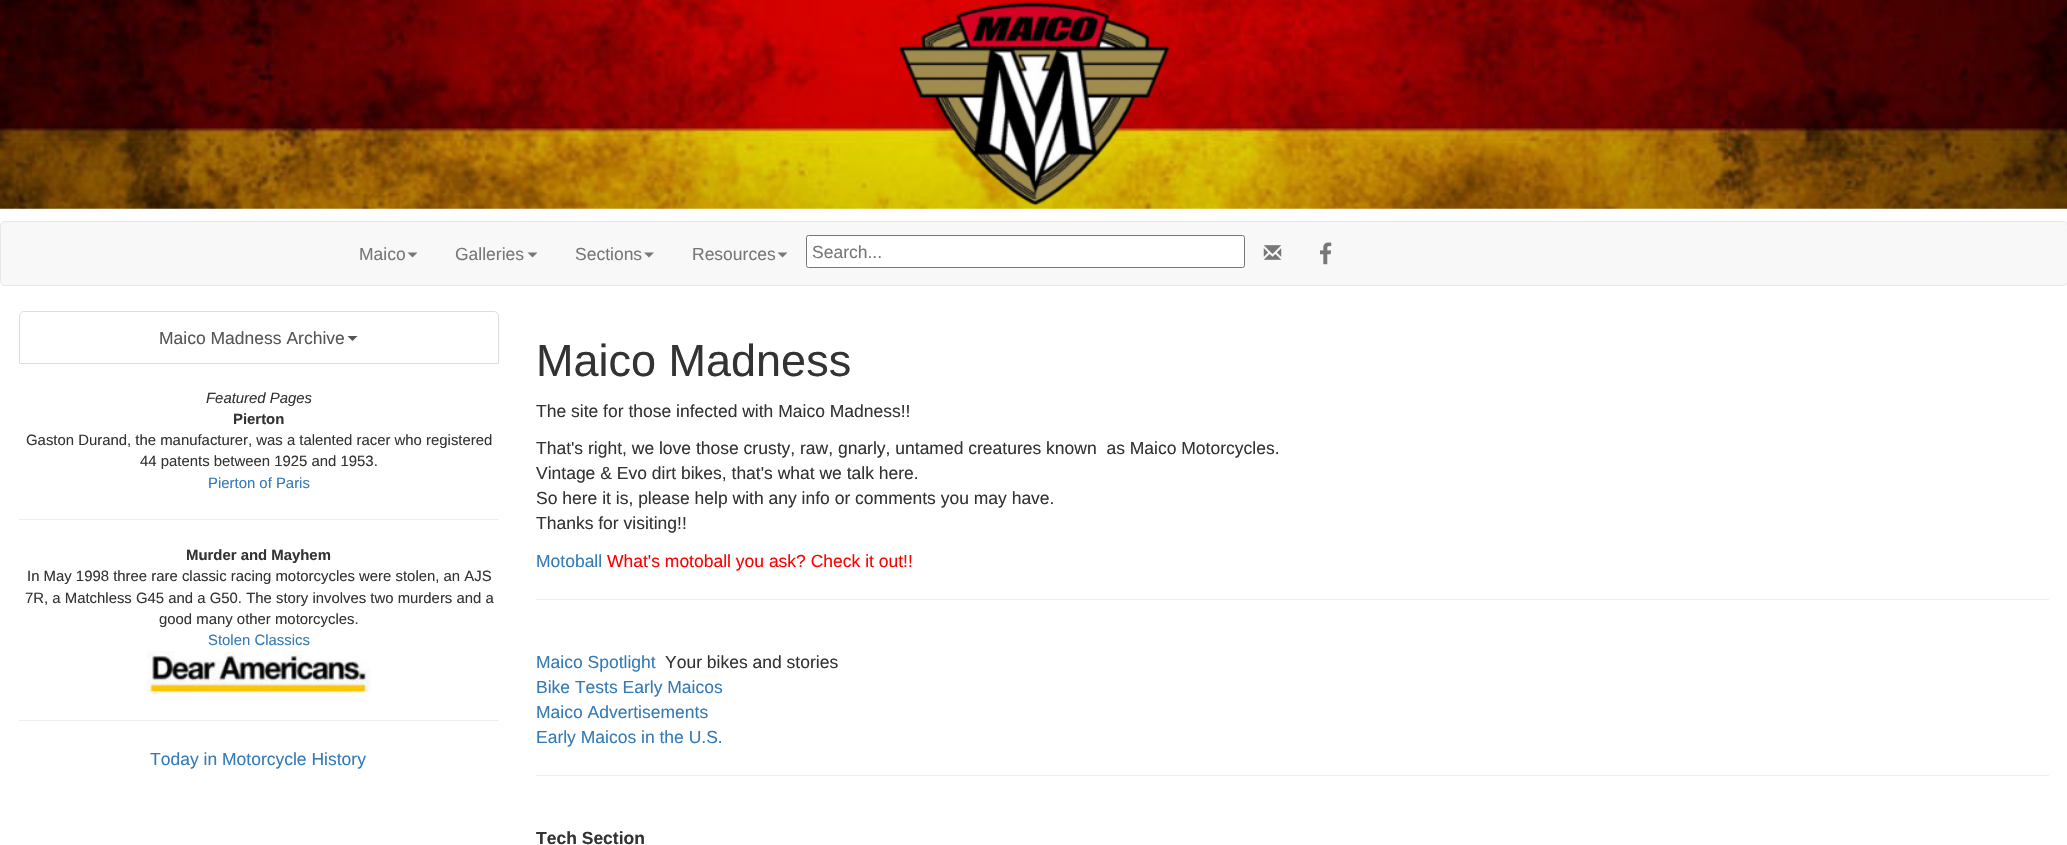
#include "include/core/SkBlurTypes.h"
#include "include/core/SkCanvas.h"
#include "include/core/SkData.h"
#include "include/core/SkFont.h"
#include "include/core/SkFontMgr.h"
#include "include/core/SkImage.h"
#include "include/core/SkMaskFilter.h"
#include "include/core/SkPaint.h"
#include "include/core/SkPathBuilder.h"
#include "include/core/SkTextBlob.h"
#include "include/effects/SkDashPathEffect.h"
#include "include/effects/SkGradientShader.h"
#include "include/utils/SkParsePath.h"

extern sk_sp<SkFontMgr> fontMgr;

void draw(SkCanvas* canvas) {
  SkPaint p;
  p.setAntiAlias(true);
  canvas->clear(SK_ColorWHITE);
  canvas->drawImageRect(SkImages::DeferredFromEncodedData(SkData::MakeFromFileName("images/1.png")), SkRect::MakeLTRB(0, 0, 2067, 209), SkSamplingOptions());
  canvas->drawImageRect(SkImages::DeferredFromEncodedData(SkData::MakeFromFileName("images/2.png")), SkRect::MakeLTRB(898, 2, 1169, 206), SkSamplingOptions());
  p.setColor(SkColorSetRGB(248, 248, 248));
  canvas->drawRoundRect(SkRect::MakeLTRB(0.5f, 221.5f, 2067.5f, 285.5f), 4.5f, 4.5f, p);
  p.setStyle(SkPaint::kStroke_Style);
  p.setStrokeWidth(1);
  p.setColor(SkColorSetRGB(231, 231, 231));
  canvas->drawRoundRect(SkRect::MakeLTRB(0.5f, 221.5f, 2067.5f, 285.5f), 4.5f, 4.5f, p);
  p.setStyle(SkPaint::kFill_Style);
  p.setColor(SkColorSetRGB(119, 119, 119));
  canvas->drawPath(SkPathBuilder().moveTo(407.5f, 252.5f).lineTo(417.5f, 252.5f).lineTo(412.5f, 257.5f).close().detach(), p);
  canvas->drawPath(SkPathBuilder().moveTo(527.5f, 252.5f).lineTo(537.5f, 252.5f).lineTo(532.5f, 257.5f).close().detach(), p);
  canvas->drawPath(SkPathBuilder().moveTo(644, 252.5f).lineTo(654, 252.5f).lineTo(649, 257.5f).close().detach(), p);
  canvas->drawPath(SkPathBuilder().moveTo(777.5f, 252.5f).lineTo(787.5f, 252.5f).lineTo(782.5f, 257.5f).close().detach(), p);
  p.setColor(SK_ColorWHITE);
  canvas->drawRoundRect(SkRect::MakeLTRB(806.5f, 235.5f, 1244.5f, 267.5f), 2, 2, p);
  p.setStyle(SkPaint::kStroke_Style);
  p.setColor(SkColorSetRGB(118, 118, 118));
  canvas->drawRoundRect(SkRect::MakeLTRB(806.5f, 235.5f, 1244.5f, 267.5f), 2, 2, p);
  canvas->drawImageRect(SkImages::DeferredFromEncodedData(SkData::MakeFromFileName("images/3.png")), SkRect::MakeLTRB(1263, 245, 1282, 260), SkSamplingOptions());
  canvas->drawImageRect(SkImages::DeferredFromEncodedData(SkData::MakeFromFileName("images/4.png")), SkRect::MakeLTRB(1320, 242, 1332, 265), SkSamplingOptions());
  p.setColor(SkColorSetRGB(221, 221, 221));
  canvas->drawPath(SkPathBuilder().moveTo(24, 311.5f).lineTo(494, 311.5f).cubicTo(496.5f, 311.5f, 498.5f, 313.5f, 498.5f, 316).lineTo(498.5f, 363.5f).lineTo(19.5f, 363.5f).lineTo(19.5f, 316).cubicTo(19.5f, 313.5f, 21.5f, 311.5f, 24, 311.5f).close().detach(), p);
  p.setStyle(SkPaint::kFill_Style);
  p.setColor(SkColorSetRGB(85, 85, 85));
  canvas->drawPath(SkPathBuilder().moveTo(347.5f, 336).lineTo(357.5f, 336).lineTo(352.5f, 341).close().detach(), p);
  p.setColor(SkColorSetRGB(238, 238, 238));
  canvas->drawRect(SkRect::MakeLTRB(19, 519, 499, 520), p);
  canvas->drawImageRect(SkImages::DeferredFromEncodedData(SkData::MakeFromFileName("images/5.png")), SkRect::MakeLTRB(146, 651, 371, 695), SkSamplingOptions());
  canvas->drawRect(SkRect::MakeLTRB(19, 720, 499, 721), p);
  canvas->drawRect(SkRect::MakeLTRB(536, 599, 2049, 600), p);
  canvas->drawRect(SkRect::MakeLTRB(536, 775, 2049, 776), p);
  SkFont font1(fontMgr->matchFamilyStyle("Liberation Sans", SkFontStyle::Normal()), 17.5f);
  font1.setSubpixel(true);
  p.setColor(SkColorSetRGB(119, 119, 119));
  canvas->drawString("Maico", 359, 260, font1, p);
  canvas->drawString("Galleries", 455, 260, font1, p);
  canvas->drawString("Sections", 575, 260, font1, p);
  canvas->drawString("Resources", 692, 260, font1, p);
  canvas->drawString("Search...", 812, 258, font1, p);
  p.setColor(SkColorSetRGB(85, 85, 85));
  canvas->drawString("Maico Madness Archive", 159, 344, font1, p);
  SkFont font2(fontMgr->matchFamilyStyle("Liberation Sans", SkFontStyle::Italic()), 14.9f);
  font2.setSubpixel(true);
  p.setColor(SkColorSetRGB(51, 51, 51));
  canvas->drawString("Featured Pages", 206, 403, font2, p);
  SkFont font3(fontMgr->matchFamilyStyle("Liberation Sans", SkFontStyle::Bold()), 14.9f);
  font3.setSubpixel(true);
  canvas->drawString("Pierton", 233, 424, font3, p);
  SkFont font4(fontMgr->matchFamilyStyle("Liberation Sans", SkFontStyle::Normal()), 14.9f);
  font4.setSubpixel(true);
  canvas->drawString("Gaston Durand, the manufacturer, was a talented racer who registered", 26, 445, font4, p);
  canvas->drawString("44 patents between 1925 and 1953.", 140, 466, font4, p);
  p.setColor(SkColorSetRGB(51, 122, 183));
  canvas->drawString("Pierton of Paris", 208, 488, font4, p);
  p.setColor(SkColorSetRGB(51, 51, 51));
  canvas->drawString("Murder and Mayhem", 186, 560, font3, p);
  canvas->drawString("In May 1998 three rare classic racing motorcycles were stolen, an AJS", 27, 581, font4, p);
  canvas->drawString("7R, a Matchless G45 and a G50. The story involves two murders and a", 25, 603, font4, p);
  canvas->drawString("good many other motorcycles.", 159, 624, font4, p);
  p.setColor(SkColorSetRGB(51, 122, 183));
  canvas->drawString("Stolen Classics", 208, 645, font4, p);
  canvas->drawString("Today in Motorcycle History", 150, 765, font1, p);
  SkFont font5(fontMgr->matchFamilyStyle("Liberation Sans", SkFontStyle::Normal()), 45);
  font5.setSubpixel(true);
  p.setColor(SkColorSetRGB(51, 51, 51));
  canvas->drawString("Maico Madness", 536, 376, font5, p);
  canvas->drawString("The site for those infected with Maico Madness!!", 536, 417, font1, p);
  canvas->drawString("That's right, we love those crusty, raw, gnarly, untamed creatures known  as Maico Motorcycles.", 536, 454, font1, p);
  canvas->drawString("Vintage & Evo dirt bikes, that's what we talk here.", 536, 479, font1, p);
  canvas->drawString("So here it is, please help with any info or comments you may have.", 536, 504, font1, p);
  canvas->drawString("Thanks for visiting!!", 536, 529, font1, p);
  p.setColor(SkColorSetRGB(51, 122, 183));
  canvas->drawString("Motoball", 536, 567, font1, p);
  p.setColor(SkColorSetRGB(255, 0, 0));
  canvas->drawString("What's motoball you ask? Check it out!!", 607, 567, font1, p);
  p.setColor(SkColorSetRGB(51, 122, 183));
  canvas->drawString("Maico Spotlight", 536, 668, font1, p);
  p.setColor(SkColorSetRGB(51, 51, 51));
  canvas->drawString("Your bikes and stories", 665, 668, font1, p);
  p.setColor(SkColorSetRGB(51, 122, 183));
  canvas->drawString("Bike Tests Early Maicos", 536, 693, font1, p);
  canvas->drawString("Maico Advertisements", 536, 718, font1, p);
  canvas->drawString("Early Maicos in the U.S.", 536, 743, font1, p);
  SkFont font6(fontMgr->matchFamilyStyle("Liberation Sans", SkFontStyle::Bold()), 17.5f);
  font6.setSubpixel(true);
  p.setColor(SkColorSetRGB(51, 51, 51));
  canvas->drawString("Tech Section", 536, 844, font6, p);
}
